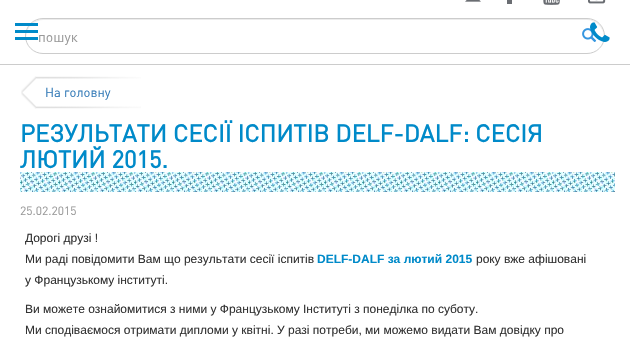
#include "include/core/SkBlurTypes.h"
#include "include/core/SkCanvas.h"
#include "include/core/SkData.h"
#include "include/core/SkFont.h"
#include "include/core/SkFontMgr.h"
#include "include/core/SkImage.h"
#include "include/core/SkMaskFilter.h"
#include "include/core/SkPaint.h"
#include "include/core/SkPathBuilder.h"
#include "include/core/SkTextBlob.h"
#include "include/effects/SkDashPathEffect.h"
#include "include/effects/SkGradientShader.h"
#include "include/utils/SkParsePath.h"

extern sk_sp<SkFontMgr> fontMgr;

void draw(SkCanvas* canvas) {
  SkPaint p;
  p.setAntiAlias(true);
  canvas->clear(SK_ColorWHITE);
  p.setColor(SkColorSetRGB(236, 236, 236));
  canvas->drawPath(SkPathBuilder().moveTo(43, 20).lineTo(587, 20).cubicTo(596, 20, 604, 28, 604, 37).lineTo(604, 36).cubicTo(604, 27, 596, 19, 587, 19).lineTo(43, 19).cubicTo(34, 19, 26, 27, 26, 36).lineTo(26, 37).cubicTo(26, 28, 34, 20, 43, 20).close().detach(), p);
  p.setStyle(SkPaint::kStroke_Style);
  p.setStrokeWidth(1);
  p.setColor(SkColorSetRGB(204, 204, 204));
  canvas->drawRoundRect(SkRect::MakeLTRB(25.5f, 18.5f, 604.5f, 53.5f), 17.5f, 17.5f, p);
  p.setStyle(SkPaint::kFill_Style);
  p.setColor(SkColorSetRGB(0, 138, 201));
  canvas->drawRect(SkRect::MakeLTRB(15, 30, 38, 33), p);
  canvas->drawRect(SkRect::MakeLTRB(15, 23, 38, 26), p);
  canvas->drawRect(SkRect::MakeLTRB(15, 37, 38, 40), p);
  canvas->drawImageRect(SkImages::DeferredFromEncodedData(SkData::MakeFromFileName("images/5.png")), SkRect::MakeLTRB(582, 28, 597, 42), SkSamplingOptions());
  canvas->drawImageRect(SkImages::DeferredFromEncodedData(SkData::MakeFromFileName("images/1.png")), SkRect::MakeLTRB(590, 22, 610, 42), SkSamplingOptions());
  p.setColor(SkColorSetRGB(204, 204, 204));
  canvas->drawRect(SkRect::MakeLTRB(0, 64, 630, 65), p);
  canvas->drawImageRect(SkImages::DeferredFromEncodedData(SkData::MakeFromFileName("images/2.png")), SkRect::MakeLTRB(465, 0, 481, 2), SkSamplingOptions());
  p.setColor(SkColorSetRGB(106, 109, 114));
  canvas->drawRect(SkRect::MakeLTRB(507, 0, 512, 4), p);
  canvas->drawImageRect(SkImages::DeferredFromEncodedData(SkData::MakeFromFileName("images/3.png")), SkRect::MakeLTRB(543, 0, 560, 5), SkSamplingOptions());
  canvas->drawImageRect(SkImages::DeferredFromEncodedData(SkData::MakeFromFileName("images/4.png")), SkRect::MakeLTRB(588, 0, 606, 4), SkSamplingOptions());
  canvas->drawImageRect(SkImages::DeferredFromEncodedData(SkData::MakeFromFileName("images/6.png")), SkRect::MakeLTRB(21, 76, 141, 109), SkSamplingOptions());
  canvas->drawImageRect(SkImages::DeferredFromEncodedData(SkData::MakeFromFileName("images/7.png")), SkRect::MakeLTRB(20, 172, 615, 192), SkSamplingOptions());
  SkFont font1(fontMgr->matchFamilyStyle("DIN", SkFontStyle::Normal()), 14);
  font1.setSubpixel(true);
  p.setColor(SkColorSetRGB(153, 153, 153));
  canvas->drawString("пошук", 38, 42, font1, p);
  SkFont font2(fontMgr->matchFamilyStyle("DIN", SkFontStyle::Normal()), 13);
  font2.setSubpixel(true);
  p.setColor(SkColorSetRGB(51, 122, 183));
  canvas->drawString("На головну", 45, 97, font2, p);
  SkFont font3(fontMgr->matchFamilyStyle("DIN", SkFontStyle::Bold()), 24);
  font3.setSubpixel(true);
  p.setColor(SkColorSetRGB(0, 138, 201));
  canvas->drawString("РЕЗУЛЬТАТИ СЕСІЇ ІСПИТІВ DELF-DALF: СЕСІЯ", 20, 142, font3, p);
  canvas->drawString("ЛЮТИЙ 2015.", 20, 168, font3, p);
  SkFont font4(fontMgr->matchFamilyStyle("DIN", SkFontStyle::Normal()), 12);
  font4.setSubpixel(true);
  p.setColor(SkColorSetRGB(153, 153, 153));
  canvas->drawString("25.02.2015", 20, 215, font4, p);
  SkFont font5(fontMgr->matchFamilyStyle("Liberation Sans", SkFontStyle::Normal()), 12);
  font5.setSubpixel(true);
  p.setColor(SkColorSetRGB(51, 51, 51));
  canvas->drawString("Дорогі друзі !", 25, 242, font5, p);
  canvas->drawString("Ми раді повідомити Вам що результати сесії іспитів", 25, 263, font5, p);
  SkFont font6(fontMgr->matchFamilyStyle("Liberation Sans", SkFontStyle::Bold()), 12);
  font6.setSubpixel(true);
  p.setColor(SkColorSetRGB(0, 138, 201));
  canvas->drawString("DELF-DALF за лютий 2015", 317, 263, font6, p);
  p.setColor(SkColorSetRGB(51, 51, 51));
  canvas->drawString("року вже афішовані", 476, 263, font5, p);
  canvas->drawString("у Французькому інституті.", 25, 284, font5, p);
  canvas->drawString("Ви можете ознайомитися з ними у Французькому Інституті з понеділка по суботу.", 25, 313, font5, p);
  canvas->drawString("Ми сподіваємося отримати дипломи у квітні. У разі потреби, ми можемо видати Вам довідку про", 25, 334, font5, p);
}
